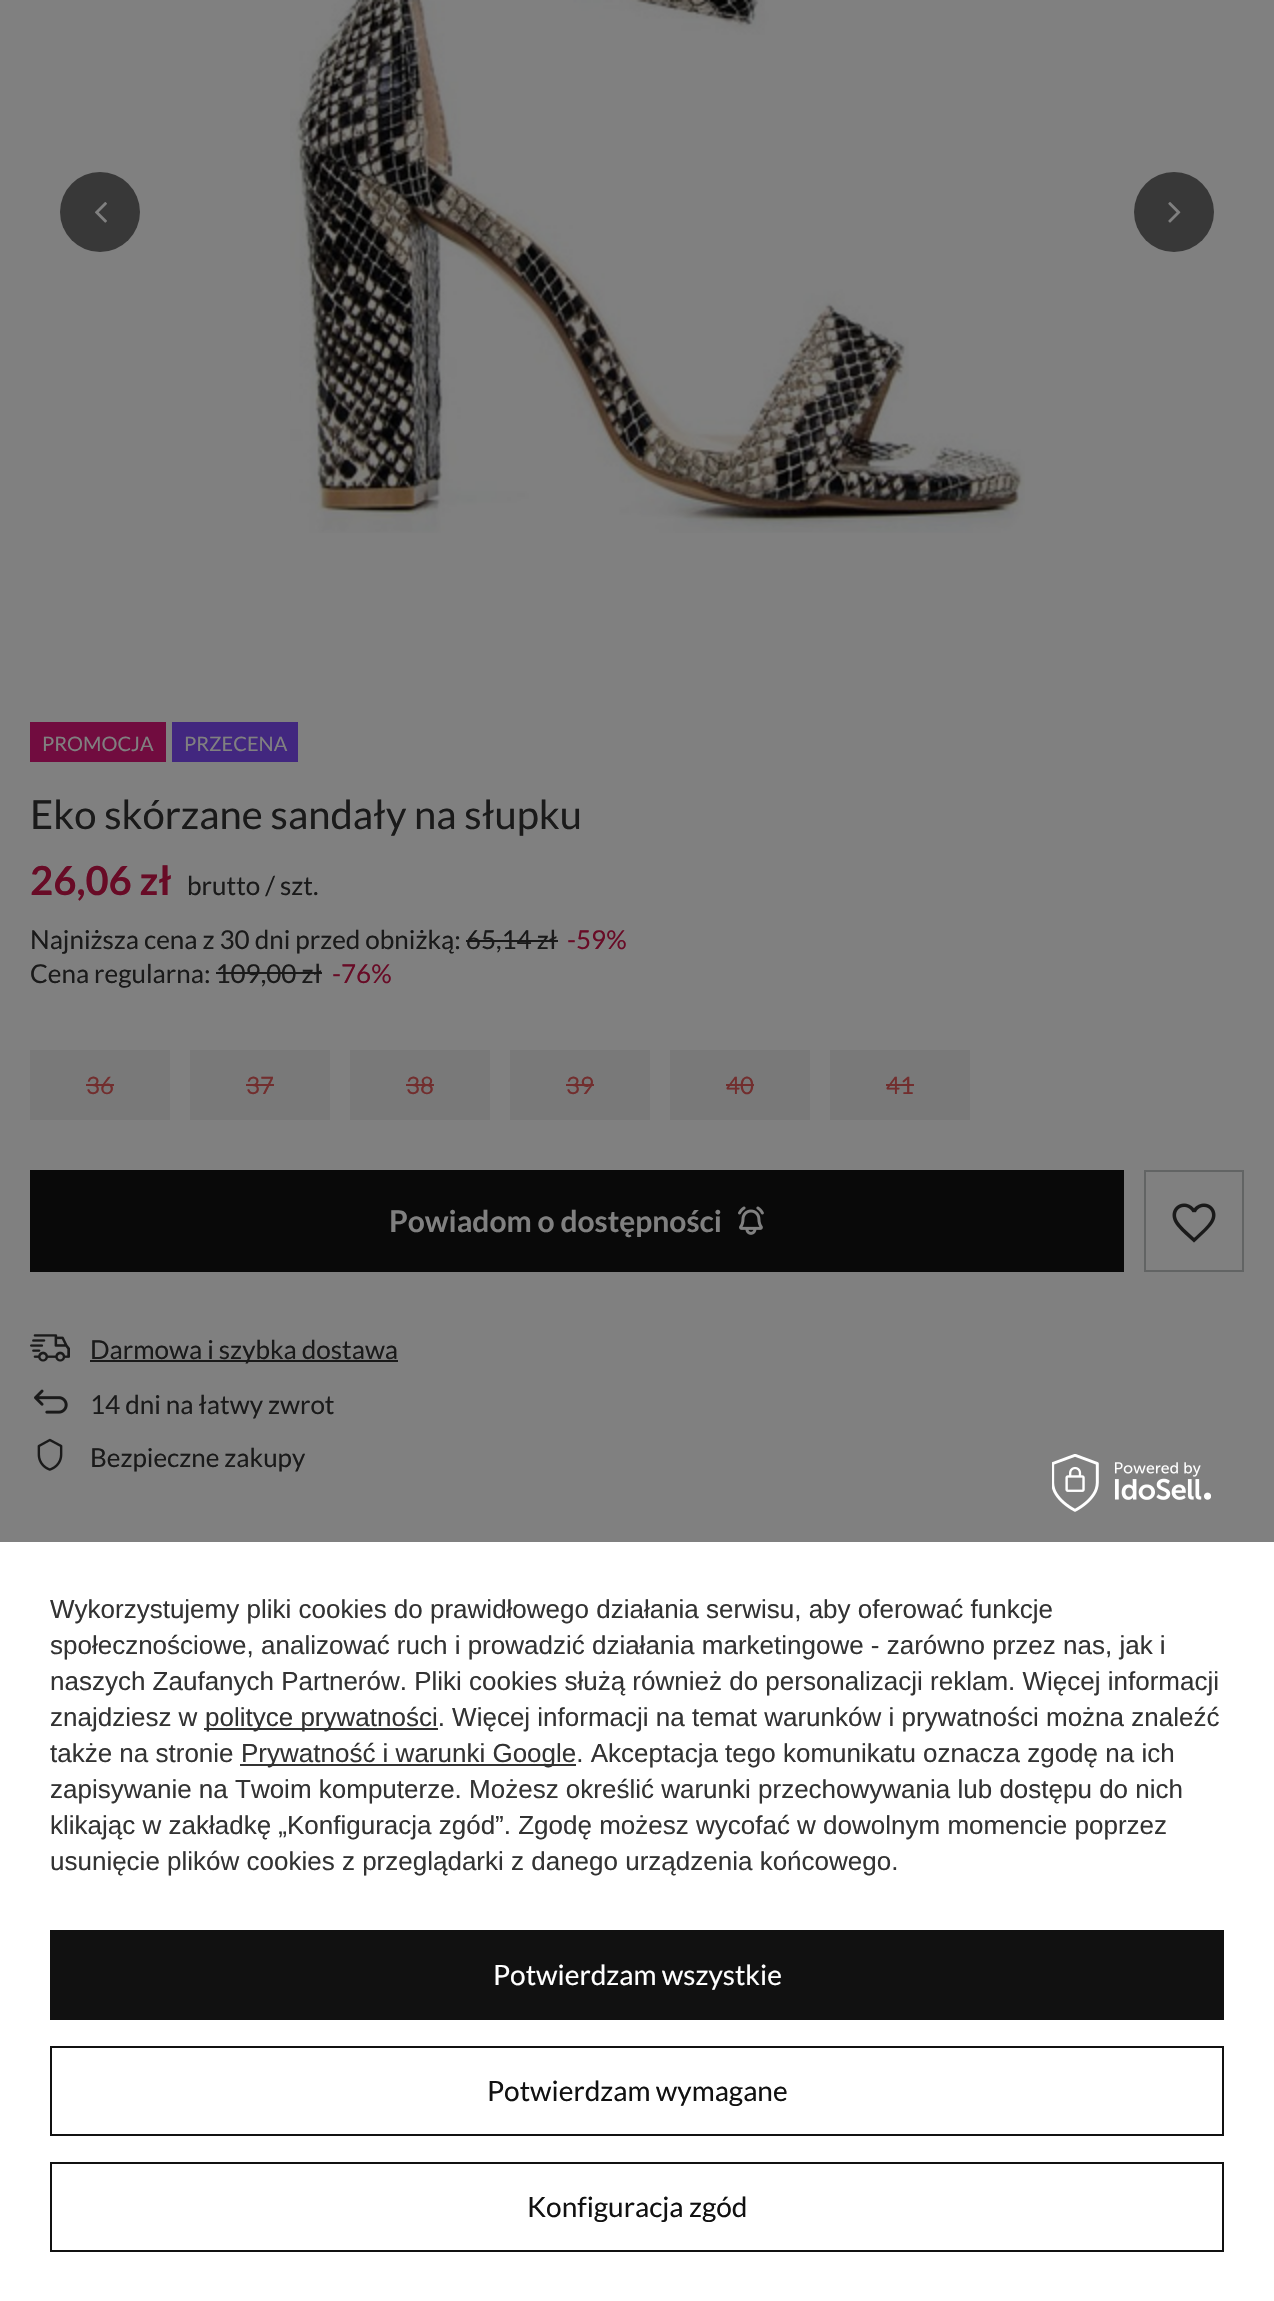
#include "include/core/SkBlurTypes.h"
#include "include/core/SkCanvas.h"
#include "include/core/SkData.h"
#include "include/core/SkFont.h"
#include "include/core/SkFontMgr.h"
#include "include/core/SkImage.h"
#include "include/core/SkMaskFilter.h"
#include "include/core/SkPaint.h"
#include "include/core/SkPathBuilder.h"
#include "include/core/SkTextBlob.h"
#include "include/effects/SkDashPathEffect.h"
#include "include/effects/SkGradientShader.h"
#include "include/utils/SkParsePath.h"

extern sk_sp<SkFontMgr> fontMgr;

void draw(SkCanvas* canvas) {
  SkPaint p;
  p.setAntiAlias(true);
  canvas->clear(SkColorSetRGB(128, 128, 128));
  p.setColor(SkColorSetRGB(56, 56, 56));
  canvas->drawCircle(100, 212, 40, p);
  canvas->drawImageRect(SkImages::DeferredFromEncodedData(SkData::MakeFromFileName("images/1.png")), SkRect::MakeLTRB(95, 202, 107, 223), SkSamplingOptions());
  canvas->drawImageRect(SkImages::DeferredFromEncodedData(SkData::MakeFromFileName("images/2.png")), SkRect::MakeLTRB(290, 0, 1025, 533), SkSamplingOptions());
  canvas->drawCircle(1174, 212, 40, p);
  canvas->drawImageRect(SkImages::DeferredFromEncodedData(SkData::MakeFromFileName("images/3.png")), SkRect::MakeLTRB(1168, 202, 1181, 223), SkSamplingOptions());
  p.setColor(SkColorSetRGB(113, 12, 63));
  canvas->drawRect(SkRect::MakeLTRB(30, 722, 166, 762), p);
  p.setColor(SkColorSetRGB(66, 39, 127));
  canvas->drawRect(SkRect::MakeLTRB(172, 722, 298, 762), p);
  p.setColor(SkColorSetRGB(26, 26, 26));
  canvas->drawRect(SkRect::MakeLTRB(466, 940, 558, 942), p);
  canvas->drawRect(SkRect::MakeLTRB(216, 972, 322, 974), p);
  p.setColor(SkColorSetRGB(121, 121, 121));
  canvas->drawRect(SkRect::MakeLTRB(30, 1050, 170, 1120), p);
  p.setColor(SkColorSetRGB(114, 46, 46));
  canvas->drawRect(SkRect::MakeLTRB(86, 1084, 114, 1086), p);
  p.setColor(SkColorSetRGB(121, 121, 121));
  canvas->drawRect(SkRect::MakeLTRB(190, 1050, 330, 1120), p);
  p.setColor(SkColorSetRGB(114, 46, 46));
  canvas->drawRect(SkRect::MakeLTRB(246, 1084, 274, 1086), p);
  p.setColor(SkColorSetRGB(121, 121, 121));
  canvas->drawRect(SkRect::MakeLTRB(350, 1050, 490, 1120), p);
  p.setColor(SkColorSetRGB(114, 46, 46));
  canvas->drawRect(SkRect::MakeLTRB(406, 1084, 434, 1086), p);
  p.setColor(SkColorSetRGB(121, 121, 121));
  canvas->drawRect(SkRect::MakeLTRB(510, 1050, 650, 1120), p);
  p.setColor(SkColorSetRGB(114, 46, 46));
  canvas->drawRect(SkRect::MakeLTRB(566, 1084, 594, 1086), p);
  p.setColor(SkColorSetRGB(121, 121, 121));
  canvas->drawRect(SkRect::MakeLTRB(670, 1050, 810, 1120), p);
  p.setColor(SkColorSetRGB(114, 46, 46));
  canvas->drawRect(SkRect::MakeLTRB(726, 1084, 754, 1086), p);
  p.setColor(SkColorSetRGB(121, 121, 121));
  canvas->drawRect(SkRect::MakeLTRB(830, 1050, 970, 1120), p);
  p.setColor(SkColorSetRGB(114, 46, 46));
  canvas->drawRect(SkRect::MakeLTRB(886, 1084, 914, 1086), p);
  p.setColor(SkColorSetRGB(9, 9, 9));
  canvas->drawRect(SkRect::MakeLTRB(30, 1170, 1124, 1272), p);
  canvas->drawImageRect(SkImages::DeferredFromEncodedData(SkData::MakeFromFileName("images/4.png")), SkRect::MakeLTRB(738, 1206, 764, 1235), SkSamplingOptions());
  p.setStyle(SkPaint::kStroke_Style);
  p.setStrokeWidth(2);
  p.setColor(SkColorSetRGB(98, 100, 100));
  canvas->drawRect(SkRect::MakeLTRB(1145, 1171, 1243, 1271), p);
  canvas->drawImageRect(SkImages::DeferredFromEncodedData(SkData::MakeFromFileName("images/5.png")), SkRect::MakeLTRB(1172, 1203, 1216, 1243), SkSamplingOptions());
  canvas->drawImageRect(SkImages::DeferredFromEncodedData(SkData::MakeFromFileName("images/6.png")), SkRect::MakeLTRB(30, 1334, 70, 1362), SkSamplingOptions());
  p.setStyle(SkPaint::kFill_Style);
  p.setColor(SkColorSetRGB(26, 26, 26));
  canvas->drawRect(SkRect::MakeLTRB(90, 1360, 398, 1362), p);
  canvas->drawImageRect(SkImages::DeferredFromEncodedData(SkData::MakeFromFileName("images/7.png")), SkRect::MakeLTRB(34, 1389, 68, 1414), SkSamplingOptions());
  canvas->drawImageRect(SkImages::DeferredFromEncodedData(SkData::MakeFromFileName("images/8.png")), SkRect::MakeLTRB(37, 1438, 63, 1471), SkSamplingOptions());
  p.setColor(SK_ColorWHITE);
  canvas->drawRect(SkRect::MakeLTRB(0, 1542, 1274, 2301), p);
  canvas->drawImageRect(SkImages::DeferredFromEncodedData(SkData::MakeFromFileName("images/9.png")), SkRect::MakeLTRB(1052, 1454, 1211, 1512), SkSamplingOptions());
  p.setColor(SkColorSetRGB(51, 51, 51));
  canvas->drawRect(SkRect::MakeLTRB(204, 1728, 438, 1730), p);
  canvas->drawRect(SkRect::MakeLTRB(240, 1764, 576, 1766), p);
  p.setColor(SkColorSetRGB(17, 17, 17));
  canvas->drawRect(SkRect::MakeLTRB(50, 1930, 1224, 2020), p);
  p.setStyle(SkPaint::kStroke_Style);
  canvas->drawRect(SkRect::MakeLTRB(51, 2047, 1223, 2135), p);
  canvas->drawRect(SkRect::MakeLTRB(51, 2163, 1223, 2251), p);
  SkFont font1(fontMgr->matchFamilyStyle("Lato", SkFontStyle::Normal()), 20);
  font1.setSubpixel(true);
  p.setStyle(SkPaint::kFill_Style);
  p.setColor(SkColorSetRGB(128, 128, 128));
  canvas->drawString("PROMOCJA", 42, 751, font1, p);
  canvas->drawString("PRZECENA", 184, 751, font1, p);
  SkFont font2(fontMgr->matchFamilyStyle("Lato", SkFontStyle::Normal()), 40);
  font2.setSubpixel(true);
  p.setColor(SkColorSetRGB(26, 26, 26));
  canvas->drawString("Eko skórzane sandały na słupku", 30, 829, font2, p);
  SkFont font3(fontMgr->matchFamilyStyle("Lato", SkFontStyle::Bold()), 40);
  font3.setSubpixel(true);
  p.setColor(SkColorSetRGB(104, 11, 38));
  canvas->drawString("26,06 zł", 30, 895, font3, p);
  SkFont font4(fontMgr->matchFamilyStyle("Lato", SkFontStyle::Normal()), 26);
  font4.setSubpixel(true);
  p.setColor(SkColorSetRGB(26, 26, 26));
  canvas->drawString("brutto / szt.", 187, 895, font4, p);
  canvas->drawString("Najniższa cena z 30 dni przed obniżką: 65,14 zł", 30, 949, font4, p);
  p.setColor(SkColorSetRGB(104, 11, 38));
  canvas->drawString("-59%", 567, 949, font4, p);
  p.setColor(SkColorSetRGB(26, 26, 26));
  canvas->drawString("Cena regularna: 109,00 zł", 30, 983, font4, p);
  p.setColor(SkColorSetRGB(104, 11, 38));
  canvas->drawString("-76%", 332, 983, font4, p);
  SkFont font5(fontMgr->matchFamilyStyle("Lato", SkFontStyle::Normal()), 24);
  font5.setSubpixel(true);
  p.setColor(SkColorSetRGB(114, 46, 46));
  canvas->drawString("36", 86, 1094, font5, p);
  canvas->drawString("37", 246, 1094, font5, p);
  canvas->drawString("38", 406, 1094, font5, p);
  canvas->drawString("39", 566, 1094, font5, p);
  canvas->drawString("40", 726, 1094, font5, p);
  canvas->drawString("41", 886, 1094, font5, p);
  SkFont font6(fontMgr->matchFamilyStyle("Lato", SkFontStyle::Bold()), 30);
  font6.setSubpixel(true);
  p.setColor(SkColorSetRGB(128, 128, 128));
  canvas->drawString("Powiadom o dostępności", 389, 1232, font6, p);
  p.setColor(SkColorSetRGB(26, 26, 26));
  canvas->drawString("Darmowa i szybka dostawa", 90, 1359, font4, p);
  canvas->drawString("14 dni na łatwy zwrot", 90, 1414, font4, p);
  canvas->drawString("Bezpieczne zakupy", 90, 1467, font4, p);
  SkFont font7(fontMgr->matchFamilyStyle("Liberation Sans", SkFontStyle::Normal()), 26);
  font7.setSubpixel(true);
  p.setColor(SkColorSetRGB(51, 51, 51));
  canvas->drawString("Wykorzystujemy pliki cookies do prawidłowego działania serwisu, aby oferować funkcje", 50, 1618, font7, p);
  canvas->drawString("społecznościowe, analizować ruch i prowadzić działania marketingowe - zarówno przez nas, jak i", 50, 1654, font7, p);
  canvas->drawString("naszych Zaufanych Partnerów. Pliki cookies służą również do personalizacji reklam. Więcej informacji", 50, 1690, font7, p);
  canvas->drawString("znajdziesz w", 50, 1726, font7, p);
  canvas->drawString("polityce prywatności. Więcej informacji na temat warunków i prywatności można znaleźć", 205, 1726, font7, p);
  canvas->drawString("także na stronie", 50, 1762, font7, p);
  canvas->drawString("Prywatność i warunki Google. Akceptacja tego komunikatu oznacza zgodę na ich", 241, 1762, font7, p);
  canvas->drawString("zapisywanie na Twoim komputerze. Możesz określić warunki przechowywania lub dostępu do nich", 50, 1798, font7, p);
  canvas->drawString("klikając w zakładkę „Konfiguracja zgód”. Zgodę możesz wycofać w dowolnym momencie poprzez", 50, 1834, font7, p);
  canvas->drawString("usunięcie plików cookies z przeglądarki z danego urządzenia końcowego.", 50, 1870, font7, p);
  SkFont font8(fontMgr->matchFamilyStyle("Lato", SkFontStyle::Normal()), 28);
  font8.setSubpixel(true);
  p.setColor(SK_ColorWHITE);
  canvas->drawString("Potwierdzam wszystkie", 493, 1985, font8, p);
  p.setColor(SkColorSetRGB(17, 17, 17));
  canvas->drawString("Potwierdzam wymagane", 487, 2101, font8, p);
  canvas->drawString("Konfiguracja zgód", 527, 2217, font8, p);
}
